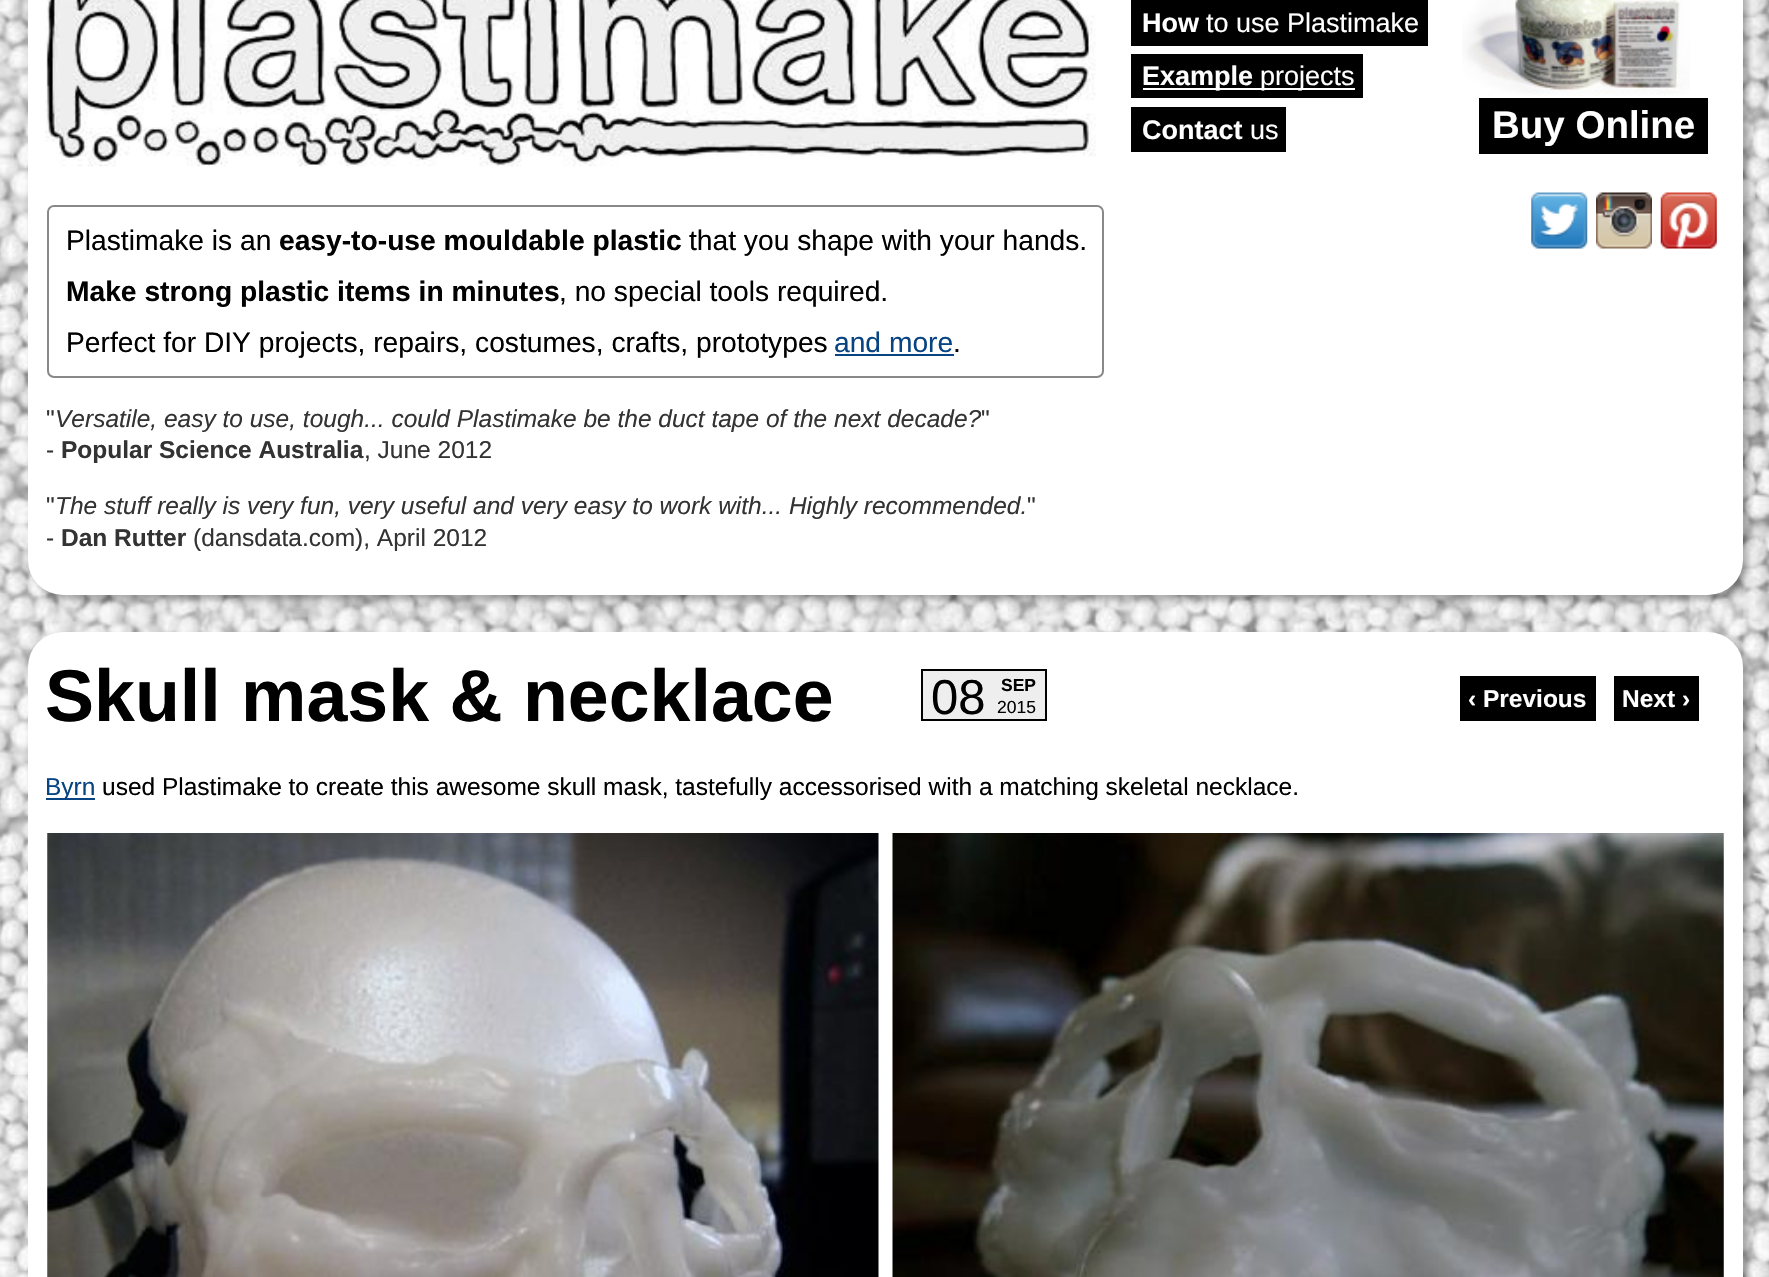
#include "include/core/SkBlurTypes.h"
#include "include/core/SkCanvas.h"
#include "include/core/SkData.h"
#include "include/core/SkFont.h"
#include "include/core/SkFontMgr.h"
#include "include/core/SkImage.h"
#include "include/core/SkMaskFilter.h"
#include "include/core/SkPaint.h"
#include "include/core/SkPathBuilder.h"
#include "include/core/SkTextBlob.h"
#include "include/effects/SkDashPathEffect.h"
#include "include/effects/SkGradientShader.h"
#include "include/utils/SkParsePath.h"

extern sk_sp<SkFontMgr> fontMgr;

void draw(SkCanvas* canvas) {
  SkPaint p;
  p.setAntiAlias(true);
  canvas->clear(SK_ColorWHITE);
  canvas->drawImageRect(SkImages::DeferredFromEncodedData(SkData::MakeFromFileName("images/1.png")), SkRect::MakeLTRB(0, 0, 1769, 1277), SkSamplingOptions());
  p.setColor(SkColorSetARGB(77, 0, 0, 0));
  p.setMaskFilter(SkMaskFilter::MakeBlur(kNormal_SkBlurStyle, 3.5f));
  canvas->drawRoundRect(SkRect::MakeLTRB(33, -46, 1748, 600), 35, 35, p);
  p.setMaskFilter(nullptr);
  p.setColor(SK_ColorWHITE);
  canvas->drawRoundRect(SkRect::MakeLTRB(28, -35, 1743, 595), 35, 35, p);
  p.setColor(SK_ColorBLACK);
  canvas->drawRect(SkRect::MakeLTRB(1131, 0, 1428, 46), p);
  canvas->drawRect(SkRect::MakeLTRB(1131, 54, 1363, 98), p);
  p.setColor(SK_ColorWHITE);
  canvas->drawRect(SkRect::MakeLTRB(1143, 88, 1355, 90), p);
  p.setColor(SK_ColorBLACK);
  canvas->drawRect(SkRect::MakeLTRB(1131, 107, 1286, 152), p);
  canvas->drawImageRect(SkImages::DeferredFromEncodedData(SkData::MakeFromFileName("images/2.png")), SkRect::MakeLTRB(1462, 0, 1690, 96), SkSamplingOptions());
  canvas->drawRect(SkRect::MakeLTRB(1479, 98, 1708, 154), p);
  canvas->drawImageRect(SkImages::DeferredFromEncodedData(SkData::MakeFromFileName("images/3.png")), SkRect::MakeLTRB(1531, 192, 1588, 249), SkSamplingOptions());
  canvas->drawImageRect(SkImages::DeferredFromEncodedData(SkData::MakeFromFileName("images/4.png")), SkRect::MakeLTRB(1596, 192, 1652, 249), SkSamplingOptions());
  canvas->drawImageRect(SkImages::DeferredFromEncodedData(SkData::MakeFromFileName("images/5.png")), SkRect::MakeLTRB(1660, 192, 1717, 249), SkSamplingOptions());
  p.setColor(SkColorSetARGB(77, 0, 0, 0));
  p.setMaskFilter(SkMaskFilter::MakeBlur(kNormal_SkBlurStyle, 3.5f));
  canvas->drawRoundRect(SkRect::MakeLTRB(33, 637, 1748, 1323), 35, 35, p);
  p.setMaskFilter(nullptr);
  p.setColor(SK_ColorWHITE);
  canvas->drawRoundRect(SkRect::MakeLTRB(28, 632, 1743, 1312), 35, 35, p);
  p.setColor(SkColorSetRGB(238, 238, 238));
  canvas->drawRect(SkRect::MakeLTRB(922, 670, 1046, 720), p);
  p.setStyle(SkPaint::kStroke_Style);
  p.setStrokeWidth(2);
  p.setColor(SK_ColorBLACK);
  canvas->drawRect(SkRect::MakeLTRB(922, 670, 1046, 720), p);
  p.setStyle(SkPaint::kFill_Style);
  canvas->drawRect(SkRect::MakeLTRB(1460, 676, 1596, 721), p);
  canvas->drawRect(SkRect::MakeLTRB(1614, 676, 1699, 721), p);
  p.setColor(SkColorSetRGB(8, 68, 130));
  canvas->drawRect(SkRect::MakeLTRB(46, 798, 95, 800), p);
  canvas->drawImageRect(SkImages::DeferredFromEncodedData(SkData::MakeFromFileName("images/6.png")), SkRect::MakeLTRB(47, 833, 879, 1277), SkSamplingOptions());
  canvas->drawImageRect(SkImages::DeferredFromEncodedData(SkData::MakeFromFileName("images/7.png")), SkRect::MakeLTRB(892, 833, 1724, 1277), SkSamplingOptions());
  canvas->drawImageRect(SkImages::DeferredFromEncodedData(SkData::MakeFromFileName("images/8.png")), SkRect::MakeLTRB(45, 0, 1096, 167), SkSamplingOptions());
  p.setStyle(SkPaint::kStroke_Style);
  p.setColor(SkColorSetRGB(136, 136, 136));
  canvas->drawRoundRect(SkRect::MakeLTRB(48, 206, 1103, 377), 6, 6, p);
  p.setStyle(SkPaint::kFill_Style);
  p.setColor(SkColorSetRGB(8, 68, 130));
  canvas->drawRect(SkRect::MakeLTRB(835, 354, 954, 356), p);
  SkFont font1(fontMgr->matchFamilyStyle("Liberation Sans", SkFontStyle::Bold()), 27);
  font1.setSubpixel(true);
  p.setColor(SK_ColorWHITE);
  canvas->drawString("How", 1142, 32, font1, p);
  SkFont font2(fontMgr->matchFamilyStyle("Liberation Sans", SkFontStyle::Normal()), 27);
  font2.setSubpixel(true);
  canvas->drawString("to use Plastimake", 1206, 32, font2, p);
  canvas->drawString("Example", 1142, 85, font1, p);
  canvas->drawString("projects", 1260, 85, font2, p);
  canvas->drawString("Contact", 1142, 139, font1, p);
  canvas->drawString("us", 1250, 139, font2, p);
  SkFont font3(fontMgr->matchFamilyStyle("Liberation Sans", SkFontStyle::Bold()), 38.5f);
  font3.setSubpixel(true);
  canvas->drawString("Buy Online", 1492, 138, font3, p);
  SkFont font4(fontMgr->matchFamilyStyle("Liberation Sans", SkFontStyle::Bold()), 73.5f);
  font4.setSubpixel(true);
  p.setColor(SK_ColorBLACK);
  canvas->drawString("Skull mask & necklace", 45, 721, font4, p);
  SkFont font5(fontMgr->matchFamilyStyle("Liberation Sans", SkFontStyle::Normal()), 49);
  font5.setSubpixel(true);
  canvas->drawString("08", 931, 714, font5, p);
  SkFont font6(fontMgr->matchFamilyStyle("Liberation Sans", SkFontStyle::Bold()), 17.5f);
  font6.setSubpixel(true);
  canvas->drawString("SEP", 1001, 691, font6, p);
  SkFont font7(fontMgr->matchFamilyStyle("Liberation Sans", SkFontStyle::Normal()), 17.5f);
  font7.setSubpixel(true);
  canvas->drawString("2015", 997, 713, font7, p);
  SkFont font8(fontMgr->matchFamilyStyle("Liberation Sans", SkFontStyle::Bold()), 24.5f);
  font8.setSubpixel(true);
  p.setColor(SK_ColorWHITE);
  canvas->drawString("‹ Previous", 1468, 707, font8, p);
  canvas->drawString("Next ›", 1622, 707, font8, p);
  SkFont font9(fontMgr->matchFamilyStyle("Liberation Sans", SkFontStyle::Normal()), 24.5f);
  font9.setSubpixel(true);
  p.setColor(SkColorSetRGB(8, 68, 130));
  canvas->drawString("Byrn", 45, 795, font9, p);
  p.setColor(SK_ColorBLACK);
  canvas->drawString("used Plastimake to create this awesome skull mask, tastefully accessorised with a matching skeletal necklace.", 102, 795, font9, p);
  SkFont font10(fontMgr->matchFamilyStyle("Liberation Sans", SkFontStyle::Normal()), 28.2f);
  font10.setSubpixel(true);
  canvas->drawString("Plastimake is an", 66, 250, font10, p);
  SkFont font11(fontMgr->matchFamilyStyle("Liberation Sans", SkFontStyle::Bold()), 28.2f);
  font11.setSubpixel(true);
  canvas->drawString("easy-to-use mouldable plastic", 279, 250, font11, p);
  canvas->drawString("that you shape with your hands.", 689, 250, font10, p);
  canvas->drawString("Make strong plastic items in minutes", 66, 301, font11, p);
  canvas->drawString(", no special tools required.", 559, 301, font10, p);
  canvas->drawString("Perfect for DIY projects, repairs, costumes, crafts, prototypes", 66, 352, font10, p);
  p.setColor(SkColorSetRGB(8, 68, 130));
  canvas->drawString("and more", 834, 352, font10, p);
  p.setColor(SK_ColorBLACK);
  canvas->drawString(".", 953, 352, font10, p);
  p.setColor(SkColorSetRGB(51, 51, 51));
  canvas->drawString("\"", 46, 427, font9, p);
  SkFont font12(fontMgr->matchFamilyStyle("Liberation Sans", SkFontStyle::Italic()), 24.5f);
  font12.setSubpixel(true);
  canvas->drawString("Versatile, easy to use, tough... could Plastimake be the duct tape of the next decade?", 55, 427, font12, p);
  canvas->drawString("\"", 981, 427, font9, p);
  canvas->drawString("-", 46, 458, font9, p);
  canvas->drawString("Popular Science Australia", 61, 458, font8, p);
  canvas->drawString(", June 2012", 364, 458, font9, p);
  canvas->drawString("\"", 46, 514, font9, p);
  canvas->drawString("The stuff really is very fun, very useful and very easy to work with... Highly recommended.", 55, 514, font12, p);
  canvas->drawString("\"", 1027, 514, font9, p);
  canvas->drawString("-", 46, 546, font9, p);
  canvas->drawString("Dan Rutter", 61, 546, font8, p);
  canvas->drawString("(dansdata.com), April 2012", 193, 546, font9, p);
}
